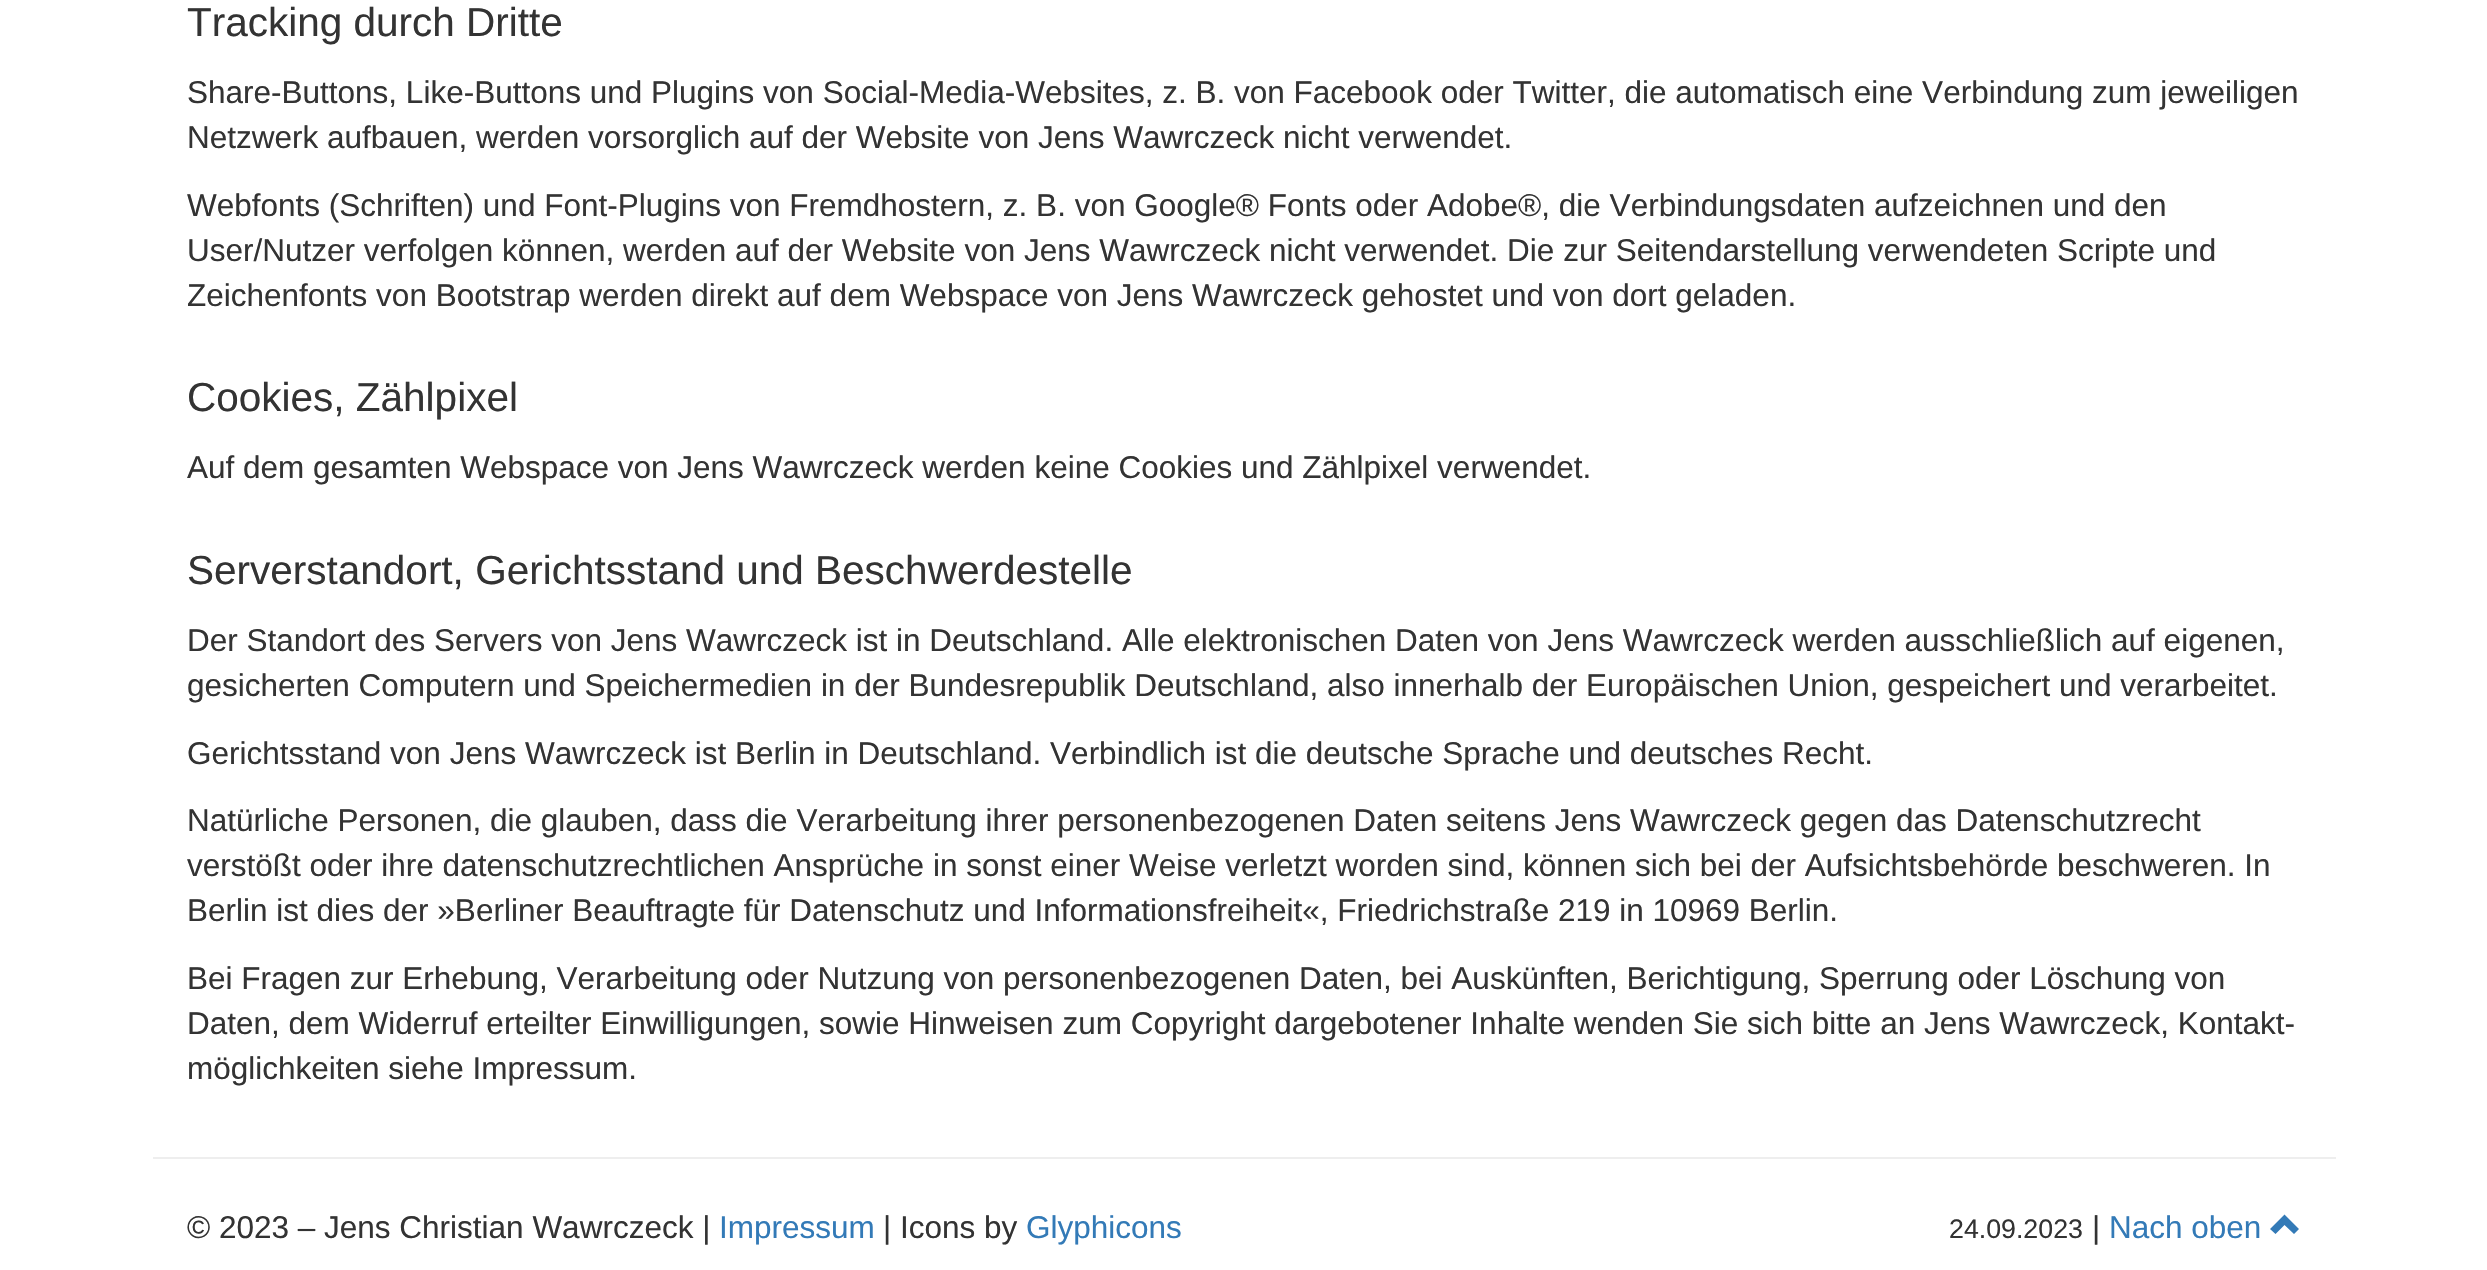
#include "include/core/SkBlurTypes.h"
#include "include/core/SkCanvas.h"
#include "include/core/SkData.h"
#include "include/core/SkFont.h"
#include "include/core/SkFontMgr.h"
#include "include/core/SkImage.h"
#include "include/core/SkMaskFilter.h"
#include "include/core/SkPaint.h"
#include "include/core/SkPathBuilder.h"
#include "include/core/SkTextBlob.h"
#include "include/effects/SkDashPathEffect.h"
#include "include/effects/SkGradientShader.h"
#include "include/utils/SkParsePath.h"

extern sk_sp<SkFontMgr> fontMgr;

void draw(SkCanvas* canvas) {
  SkPaint p;
  p.setAntiAlias(true);
  canvas->clear(SK_ColorWHITE);
  p.setColor(SkColorSetRGB(238, 238, 238));
  canvas->drawRect(SkRect::MakeLTRB(153, 1157, 2336, 1159), p);
  p.setColor(SkColorSetRGB(51, 122, 183));
  canvas->drawPath(SkPathBuilder().moveTo(2299, 1229).lineTo(2294, 1234).lineTo(2284.5f, 1225).lineTo(2275.5f, 1234).lineTo(2270, 1229).lineTo(2284.5f, 1214.5f).close().detach(), p);
  SkFont font1(fontMgr->matchFamilyStyle("Liberation Sans", SkFontStyle::Normal()), 40.5f);
  font1.setSubpixel(true);
  p.setColor(SkColorSetRGB(51, 51, 51));
  canvas->drawString("Tracking durch Dritte", 187, 36, font1, p);
  SkFont font2(fontMgr->matchFamilyStyle("Liberation Sans", SkFontStyle::Normal()), 31.5f);
  font2.setSubpixel(true);
  canvas->drawString("Share-Buttons, Like-Buttons und Plugins von Social-Media-Websites, z. B. von Facebook oder Twitter, die automatisch eine Verbindung zum jeweiligen", 187, 103, font2, p);
  canvas->drawString("Netzwerk aufbauen, werden vorsorglich auf der Website von Jens Wawrczeck nicht verwendet.", 187, 148, font2, p);
  canvas->drawString("Webfonts (Schriften) und Font-Plugins von Fremdhostern, z. B. von Google® Fonts oder Adobe®, die Verbindungsdaten aufzeichnen und den", 187, 216, font2, p);
  canvas->drawString("User/Nutzer verfolgen können, werden auf der Website von Jens Wawrczeck nicht verwendet. Die zur Seitendarstellung verwendeten Scripte und", 187, 261, font2, p);
  canvas->drawString("Zeichenfonts von Bootstrap werden direkt auf dem Webspace von Jens Wawrczeck gehostet und von dort geladen.", 187, 306, font2, p);
  canvas->drawString("Cookies, Zählpixel", 187, 411, font1, p);
  canvas->drawString("Auf dem gesamten Webspace von Jens Wawrczeck werden keine Cookies und Zählpixel verwendet.", 187, 478, font2, p);
  canvas->drawString("Serverstandort, Gerichtsstand und Beschwerdestelle", 187, 584, font1, p);
  canvas->drawString("Der Standort des Servers von Jens Wawrczeck ist in Deutschland. Alle elektronischen Daten von Jens Wawrczeck werden ausschließlich auf eigenen,", 187, 651, font2, p);
  canvas->drawString("gesicherten Computern und Speichermedien in der Bundesrepublik Deutschland, also innerhalb der Europäischen Union, gespeichert und verarbeitet.", 187, 696, font2, p);
  canvas->drawString("Gerichtsstand von Jens Wawrczeck ist Berlin in Deutschland. Verbindlich ist die deutsche Sprache und deutsches Recht.", 187, 764, font2, p);
  canvas->drawString("Natürliche Personen, die glauben, dass die Verarbeitung ihrer personenbezogenen Daten seitens Jens Wawrczeck gegen das Datenschutzrecht", 187, 831, font2, p);
  canvas->drawString("verstößt oder ihre datenschutzrechtlichen Ansprüche in sonst einer Weise verletzt worden sind, können sich bei der Aufsichtsbehörde beschweren. In", 187, 876, font2, p);
  canvas->drawString("Berlin ist dies der »Berliner Beauftragte für Datenschutz und Informationsfreiheit«, Friedrichstraße 219 in 10969 Berlin.", 187, 921, font2, p);
  canvas->drawString("Bei Fragen zur Erhebung, Verarbeitung oder Nutzung von personenbezogenen Daten, bei Auskünften, Berichtigung, Sperrung oder Löschung von", 187, 989, font2, p);
  canvas->drawString("Daten, dem Widerruf erteilter Einwilligungen, sowie Hinweisen zum Copyright dargebotener Inhalte wenden Sie sich bitte an Jens Wawrczeck, Kontakt-", 187, 1034, font2, p);
  canvas->drawString("möglichkeiten siehe Impressum.", 187, 1079, font2, p);
  canvas->drawString("© 2023 – Jens Christian Wawrczeck |", 187, 1238, font2, p);
  p.setColor(SkColorSetRGB(51, 122, 183));
  canvas->drawString("Impressum", 719, 1238, font2, p);
  p.setColor(SkColorSetRGB(51, 51, 51));
  canvas->drawString("| Icons by", 883, 1238, font2, p);
  p.setColor(SkColorSetRGB(51, 122, 183));
  canvas->drawString("Glyphicons", 1026, 1238, font2, p);
  SkFont font3(fontMgr->matchFamilyStyle("Liberation Sans", SkFontStyle::Normal()), 26.75f);
  font3.setSubpixel(true);
  p.setColor(SkColorSetRGB(51, 51, 51));
  canvas->drawString("24.09.2023", 1949, 1238, font3, p);
  canvas->drawString("|", 2092, 1238, font2, p);
  p.setColor(SkColorSetRGB(51, 122, 183));
  canvas->drawString("Nach oben", 2109, 1238, font2, p);
}
